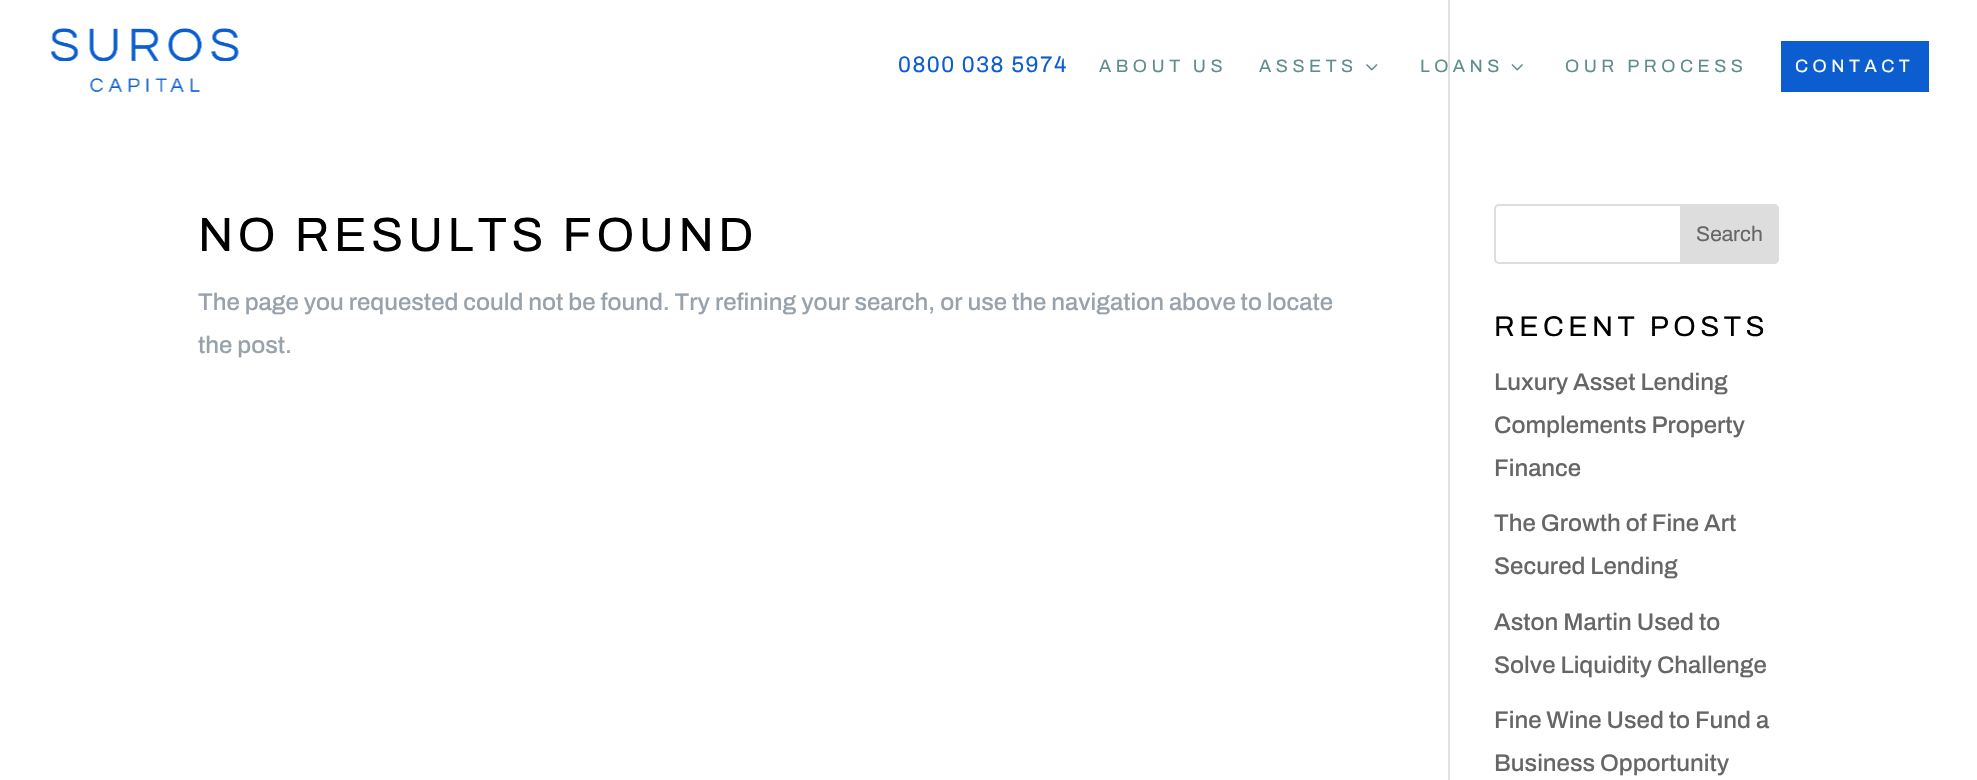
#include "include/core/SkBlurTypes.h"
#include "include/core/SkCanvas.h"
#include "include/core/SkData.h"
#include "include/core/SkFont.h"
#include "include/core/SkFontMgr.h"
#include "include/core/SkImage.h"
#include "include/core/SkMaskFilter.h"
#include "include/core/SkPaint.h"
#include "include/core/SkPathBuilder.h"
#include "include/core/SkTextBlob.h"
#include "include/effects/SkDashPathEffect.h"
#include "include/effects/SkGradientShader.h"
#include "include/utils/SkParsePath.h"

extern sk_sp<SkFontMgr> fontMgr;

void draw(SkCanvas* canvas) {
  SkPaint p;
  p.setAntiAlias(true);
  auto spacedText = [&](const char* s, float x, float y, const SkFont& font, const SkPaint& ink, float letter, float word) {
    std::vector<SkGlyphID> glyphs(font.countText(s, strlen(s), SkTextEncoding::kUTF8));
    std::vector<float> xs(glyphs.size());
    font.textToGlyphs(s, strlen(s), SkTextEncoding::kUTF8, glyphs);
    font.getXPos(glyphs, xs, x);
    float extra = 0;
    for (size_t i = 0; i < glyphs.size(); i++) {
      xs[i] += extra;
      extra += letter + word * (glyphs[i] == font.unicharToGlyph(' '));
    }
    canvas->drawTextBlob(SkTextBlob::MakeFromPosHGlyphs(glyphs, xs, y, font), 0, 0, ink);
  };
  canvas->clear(SK_ColorWHITE);
  canvas->drawImageRect(SkImages::DeferredFromEncodedData(SkData::MakeFromFileName("images/1.png")), SkRect::MakeLTRB(50, 28, 239, 92), SkSamplingOptions());
  canvas->drawImageRect(SkImages::DeferredFromEncodedData(SkData::MakeFromFileName("images/2.png")), SkRect::MakeLTRB(1366, 64, 1378, 71), SkSamplingOptions());
  canvas->drawImageRect(SkImages::DeferredFromEncodedData(SkData::MakeFromFileName("images/3.png")), SkRect::MakeLTRB(1511, 64, 1523, 71), SkSamplingOptions());
  p.setColor(SkColorSetRGB(11, 93, 208));
  canvas->drawRect(SkRect::MakeLTRB(1781, 41, 1929, 92), p);
  p.setColor(SkColorSetRGB(226, 226, 226));
  canvas->drawRect(SkRect::MakeLTRB(1448, 0, 1450, 780), p);
  p.setStyle(SkPaint::kStroke_Style);
  p.setStrokeWidth(2);
  p.setColor(SkColorSetRGB(221, 221, 221));
  canvas->drawRoundRect(SkRect::MakeLTRB(1495, 205, 1778, 263), 4, 4, p);
  p.setStyle(SkPaint::kFill_Style);
  canvas->drawPath(SkPathBuilder().moveTo(1681, 205).lineTo(1774, 205).cubicTo(1776, 205, 1778, 207, 1778, 209).lineTo(1778, 259).cubicTo(1778, 261, 1776, 263, 1774, 263).lineTo(1681, 263).close().detach(), p);
  p.setStyle(SkPaint::kStroke_Style);
  canvas->drawPath(SkPathBuilder().moveTo(1681, 205).lineTo(1774, 205).cubicTo(1776, 205, 1778, 207, 1778, 209).lineTo(1778, 259).cubicTo(1778, 261, 1776, 263, 1774, 263).lineTo(1681, 263).close().detach(), p);
  SkFont font1(fontMgr->matchFamilyStyle("Archivo", SkFontStyle(600, SkFontStyle::kNormal_Width, SkFontStyle::kUpright_Slant)), 22.5f);
  font1.setSubpixel(true);
  p.setStyle(SkPaint::kFill_Style);
  p.setColor(SkColorSetRGB(11, 93, 208));
  spacedText("0800 038 5974", 898, 72, font1, p, 1.5f, 0);
  SkFont font2(fontMgr->matchFamilyStyle("Archivo", SkFontStyle(600, SkFontStyle::kNormal_Width, SkFontStyle::kUpright_Slant)), 18);
  font2.setSubpixel(true);
  p.setColor(SkColorSetRGB(95, 140, 140));
  spacedText("ABOUT US", 1099, 72, font2, p, 4.5f, 0);
  spacedText("ASSETS", 1259, 72, font2, p, 4.5f, 0);
  spacedText("LOANS", 1420, 72, font2, p, 4.5f, 0);
  spacedText("OUR PROCESS", 1565, 72, font2, p, 4.5f, 0);
  p.setColor(SK_ColorWHITE);
  spacedText("CONTACT", 1795, 72, font2, p, 4.5f, 0);
  SkFont font3(fontMgr->matchFamilyStyle("Archivo", SkFontStyle(600, SkFontStyle::kNormal_Width, SkFontStyle::kUpright_Slant)), 48);
  font3.setSubpixel(true);
  p.setColor(SK_ColorBLACK);
  spacedText("NO RESULTS FOUND", 198, 251, font3, p, 4.5f, 0);
  SkFont font4(fontMgr->matchFamilyStyle("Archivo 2", SkFontStyle(600, SkFontStyle::kNormal_Width, SkFontStyle::kUpright_Slant)), 24);
  font4.setSubpixel(true);
  p.setColor(SkColorSetRGB(151, 162, 172));
  canvas->drawString("The page you requested could not be found. Try refining your search, or use the navigation above to locate", 198, 310, font4, p);
  canvas->drawString("the post.", 198, 353, font4, p);
  SkFont font5(fontMgr->matchFamilyStyle("Archivo", SkFontStyle(600, SkFontStyle::kNormal_Width, SkFontStyle::kUpright_Slant)), 21);
  font5.setSubpixel(true);
  p.setColor(SkColorSetRGB(102, 102, 102));
  canvas->drawString("Search", 1696, 241, font5, p);
  SkFont font6(fontMgr->matchFamilyStyle("Archivo", SkFontStyle(600, SkFontStyle::kNormal_Width, SkFontStyle::kUpright_Slant)), 28.5f);
  font6.setSubpixel(true);
  p.setColor(SK_ColorBLACK);
  spacedText("RECENT POSTS", 1494, 336, font6, p, 4.5f, 0);
  p.setColor(SkColorSetRGB(102, 102, 102));
  canvas->drawString("Luxury Asset Lending", 1494, 390, font4, p);
  canvas->drawString("Complements Property", 1494, 433, font4, p);
  canvas->drawString("Finance", 1494, 476, font4, p);
  canvas->drawString("The Growth of Fine Art", 1494, 531, font4, p);
  canvas->drawString("Secured Lending", 1494, 574, font4, p);
  canvas->drawString("Aston Martin Used to", 1494, 630, font4, p);
  canvas->drawString("Solve Liquidity Challenge", 1494, 673, font4, p);
  canvas->drawString("Fine Wine Used to Fund a", 1494, 728, font4, p);
  canvas->drawString("Business Opportunity", 1494, 771, font4, p);
}
